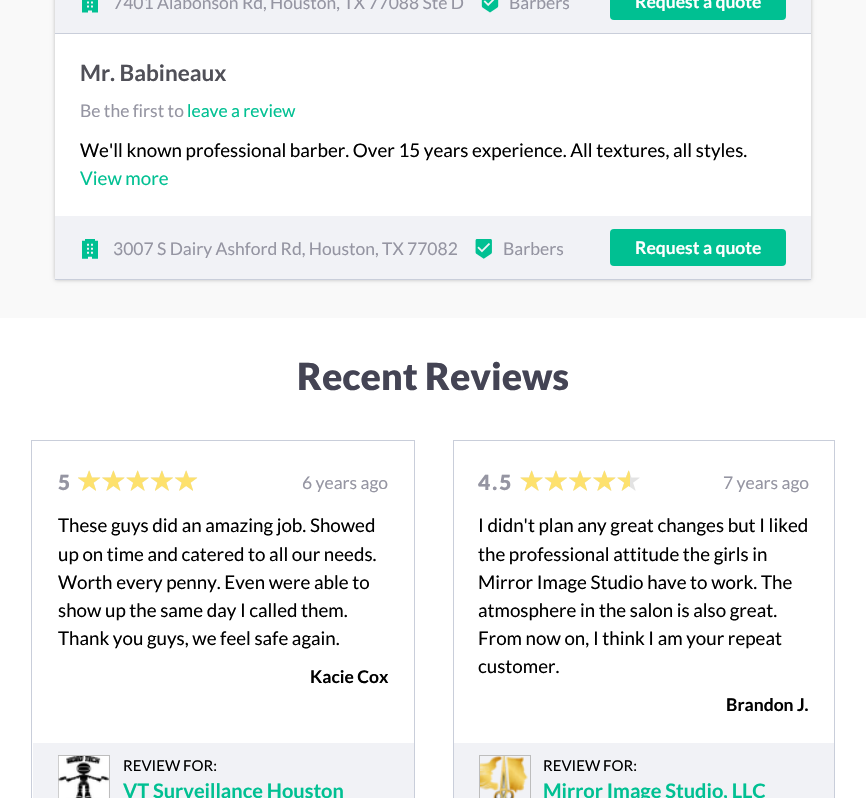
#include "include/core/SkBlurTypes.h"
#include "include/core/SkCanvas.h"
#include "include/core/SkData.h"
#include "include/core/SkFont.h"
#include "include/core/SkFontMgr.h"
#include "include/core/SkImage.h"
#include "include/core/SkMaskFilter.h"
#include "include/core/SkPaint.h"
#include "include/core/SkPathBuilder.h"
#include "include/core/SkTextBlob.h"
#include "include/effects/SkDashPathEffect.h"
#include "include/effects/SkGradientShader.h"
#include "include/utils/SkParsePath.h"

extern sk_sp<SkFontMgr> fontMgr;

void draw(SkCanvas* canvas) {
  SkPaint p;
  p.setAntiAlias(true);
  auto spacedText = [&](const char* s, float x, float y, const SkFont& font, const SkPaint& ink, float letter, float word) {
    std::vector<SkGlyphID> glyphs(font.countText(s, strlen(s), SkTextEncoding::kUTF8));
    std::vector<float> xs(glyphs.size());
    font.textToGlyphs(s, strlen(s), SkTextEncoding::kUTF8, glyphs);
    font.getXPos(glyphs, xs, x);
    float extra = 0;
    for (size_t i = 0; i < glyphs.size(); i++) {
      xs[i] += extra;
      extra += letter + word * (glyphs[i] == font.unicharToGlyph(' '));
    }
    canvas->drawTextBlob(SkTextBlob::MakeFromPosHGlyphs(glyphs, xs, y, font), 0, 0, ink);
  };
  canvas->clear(SkColorSetRGB(249, 249, 249));
  p.setColor(SkColorSetRGB(189, 189, 189));
  p.setMaskFilter(SkMaskFilter::MakeBlur(kNormal_SkBlurStyle, 2));
  canvas->drawRect(SkRect::MakeLTRB(55, -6, 811, 280), p);
  p.setMaskFilter(nullptr);
  p.setColor(SK_ColorWHITE);
  canvas->drawRect(SkRect::MakeLTRB(55, 34, 811, 216), p);
  p.setColor(SkColorSetRGB(241, 242, 246));
  canvas->drawRect(SkRect::MakeLTRB(55, 0, 811, 33), p);
  p.setColor(SkColorSetRGB(201, 206, 218));
  canvas->drawRect(SkRect::MakeLTRB(55, 33, 811, 34), p);
  canvas->drawImageRect(SkImages::DeferredFromEncodedData(SkData::MakeFromFileName("images/1.png")), SkRect::MakeLTRB(82, 0, 98, 13), SkSamplingOptions());
  canvas->drawImageRect(SkImages::DeferredFromEncodedData(SkData::MakeFromFileName("images/2.png")), SkRect::MakeLTRB(481, 0, 499, 13), SkSamplingOptions());
  p.setColor(SkColorSetRGB(0, 192, 146));
  canvas->drawRoundRect(SkRect::MakeLTRB(610, -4, 786, 20), 4, 4, p);
  p.setColor(SkColorSetRGB(241, 242, 246));
  canvas->drawRect(SkRect::MakeLTRB(55, 216, 811, 279), p);
  p.setColor(SkColorSetRGB(201, 206, 218));
  canvas->drawRect(SkRect::MakeLTRB(55, 279, 811, 280), p);
  canvas->drawImageRect(SkImages::DeferredFromEncodedData(SkData::MakeFromFileName("images/3.png")), SkRect::MakeLTRB(82, 239, 98, 259), SkSamplingOptions());
  canvas->drawImageRect(SkImages::DeferredFromEncodedData(SkData::MakeFromFileName("images/4.png")), SkRect::MakeLTRB(475, 239, 492, 259), SkSamplingOptions());
  p.setColor(SkColorSetRGB(0, 192, 146));
  canvas->drawRoundRect(SkRect::MakeLTRB(610, 229, 786, 266), 4, 4, p);
  p.setColor(SK_ColorWHITE);
  canvas->drawRect(SkRect::MakeLTRB(0, 318, 866, 798), p);
  p.setStyle(SkPaint::kStroke_Style);
  p.setStrokeWidth(1);
  p.setColor(SkColorSetRGB(201, 206, 218));
  canvas->drawRect(SkRect::MakeLTRB(31.5f, 440.5f, 414.5f, 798.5f), p);
  canvas->drawImageRect(SkImages::DeferredFromEncodedData(SkData::MakeFromFileName("images/5.png")), SkRect::MakeLTRB(78, 470, 197, 491), SkSamplingOptions());
  canvas->drawImageRect(SkImages::DeferredFromEncodedData(SkData::MakeFromFileName("images/6.png")), SkRect::MakeLTRB(78, 470, 198, 491), SkSamplingOptions());
  p.setStyle(SkPaint::kFill_Style);
  p.setColor(SkColorSetRGB(241, 242, 246));
  canvas->drawRect(SkRect::MakeLTRB(33, 743, 414, 798), p);
  p.setStyle(SkPaint::kStroke_Style);
  p.setColor(SkColorSetRGB(189, 189, 189));
  canvas->drawRect(SkRect::MakeLTRB(58.5f, 755.5f, 109.5f, 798.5f), p);
  canvas->drawImageRect(SkImages::DeferredFromEncodedData(SkData::MakeFromFileName("images/7.png")), SkRect::MakeLTRB(58, 756, 109, 798), SkSamplingOptions());
  p.setColor(SkColorSetRGB(201, 206, 218));
  canvas->drawRect(SkRect::MakeLTRB(453.5f, 440.5f, 834.5f, 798.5f), p);
  canvas->drawImageRect(SkImages::DeferredFromEncodedData(SkData::MakeFromFileName("images/8.png")), SkRect::MakeLTRB(520, 470, 640, 491), SkSamplingOptions());
  canvas->drawImageRect(SkImages::DeferredFromEncodedData(SkData::MakeFromFileName("images/9.png")), SkRect::MakeLTRB(520, 470, 630, 491), SkSamplingOptions());
  p.setStyle(SkPaint::kFill_Style);
  p.setColor(SkColorSetRGB(241, 242, 246));
  canvas->drawRect(SkRect::MakeLTRB(454, 743, 834, 798), p);
  p.setStyle(SkPaint::kStroke_Style);
  p.setColor(SkColorSetRGB(189, 189, 189));
  canvas->drawRect(SkRect::MakeLTRB(479.5f, 755.5f, 530.5f, 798.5f), p);
  canvas->drawImageRect(SkImages::DeferredFromEncodedData(SkData::MakeFromFileName("images/10.png")), SkRect::MakeLTRB(480, 756, 528, 798), SkSamplingOptions());
  SkFont font1(fontMgr->matchFamilyStyle("Lato", SkFontStyle::Normal()), 17.5f);
  font1.setSubpixel(true);
  p.setStyle(SkPaint::kFill_Style);
  p.setColor(SkColorSetRGB(149, 149, 162));
  canvas->drawString("7401 Alabonson Rd, Houston, TX 77088 Ste D", 113, 9, font1, p);
  canvas->drawString("Barbers", 509, 9, font1, p);
  SkFont font2(fontMgr->matchFamilyStyle("Lato", SkFontStyle::Bold()), 17.5f);
  font2.setSubpixel(true);
  p.setColor(SK_ColorWHITE);
  canvas->drawString("Request a quote", 635, 8, font2, p);
  SkFont font3(fontMgr->matchFamilyStyle("Lato", SkFontStyle::Bold()), 22.5f);
  font3.setSubpixel(true);
  p.setColor(SkColorSetRGB(80, 80, 88));
  canvas->drawString("Mr. Babineaux", 80, 81, font3, p);
  p.setColor(SkColorSetRGB(149, 149, 162));
  canvas->drawString("Be the first to", 80, 117, font1, p);
  p.setColor(SkColorSetRGB(0, 192, 146));
  canvas->drawString("leave a review", 187, 117, font1, p);
  SkFont font4(fontMgr->matchFamilyStyle("Lato", SkFontStyle::Normal()), 18.75f);
  font4.setSubpixel(true);
  p.setColor(SK_ColorBLACK);
  canvas->drawString("We'll known professional barber. Over 15 years experience. All textures, all styles.", 80, 157, font4, p);
  p.setColor(SkColorSetRGB(0, 192, 146));
  canvas->drawString("View more", 80, 185, font4, p);
  p.setColor(SkColorSetRGB(149, 149, 162));
  canvas->drawString("3007 S Dairy Ashford Rd, Houston, TX 77082", 113, 255, font1, p);
  canvas->drawString("Barbers", 503, 255, font1, p);
  p.setColor(SK_ColorWHITE);
  canvas->drawString("Request a quote", 635, 254, font2, p);
  SkFont font5(fontMgr->matchFamilyStyle("Lato", SkFontStyle(900, SkFontStyle::kNormal_Width, SkFontStyle::kUpright_Slant)), 37.5f);
  font5.setSubpixel(true);
  p.setColor(SkColorSetRGB(68, 68, 84));
  canvas->drawString("Recent Reviews", 297, 390, font5, p);
  SkFont font6(fontMgr->matchFamilyStyle("Lato", SkFontStyle(900, SkFontStyle::kNormal_Width, SkFontStyle::kUpright_Slant)), 21);
  font6.setSubpixel(true);
  p.setColor(SkColorSetRGB(149, 149, 162));
  spacedText("5", 58, 490, font6, p, 2, 0);
  canvas->drawString("6 years ago", 302, 489, font1, p);
  p.setColor(SK_ColorBLACK);
  canvas->drawString("These guys did an amazing job. Showed", 58, 532, font4, p);
  canvas->drawString("up on time and catered to all our needs.", 58, 561, font4, p);
  canvas->drawString("Worth every penny. Even were able to", 58, 589, font4, p);
  canvas->drawString("show up the same day I called them.", 58, 617, font4, p);
  canvas->drawString("Thank you guys, we feel safe again.", 58, 645, font4, p);
  canvas->drawString("Kacie Cox", 310, 683, font2, p);
  SkFont font7(fontMgr->matchFamilyStyle("Lato", SkFontStyle::Normal()), 15);
  font7.setSubpixel(true);
  canvas->drawString("REVIEW FOR:", 123, 771, font7, p);
  SkFont font8(fontMgr->matchFamilyStyle("Lato", SkFontStyle::Bold()), 20);
  font8.setSubpixel(true);
  p.setColor(SkColorSetRGB(0, 192, 146));
  canvas->drawString("VT Surveillance Houston", 123, 798, font8, p);
  p.setColor(SkColorSetRGB(149, 149, 162));
  spacedText("4.5", 478, 490, font6, p, 2, 0);
  canvas->drawString("7 years ago", 723, 489, font1, p);
  p.setColor(SK_ColorBLACK);
  canvas->drawString("I didn't plan any great changes but I liked", 478, 532, font4, p);
  canvas->drawString("the professional attitude the girls in", 478, 561, font4, p);
  canvas->drawString("Mirror Image Studio have to work. The", 478, 589, font4, p);
  canvas->drawString("atmosphere in the salon is also great.", 478, 617, font4, p);
  canvas->drawString("From now on, I think I am your repeat", 478, 645, font4, p);
  canvas->drawString("customer.", 478, 673, font4, p);
  canvas->drawString("Brandon J.", 726, 711, font2, p);
  canvas->drawString("REVIEW FOR:", 543, 771, font7, p);
  p.setColor(SkColorSetRGB(0, 192, 146));
  canvas->drawString("Mirror Image Studio, LLC", 543, 798, font8, p);
}
